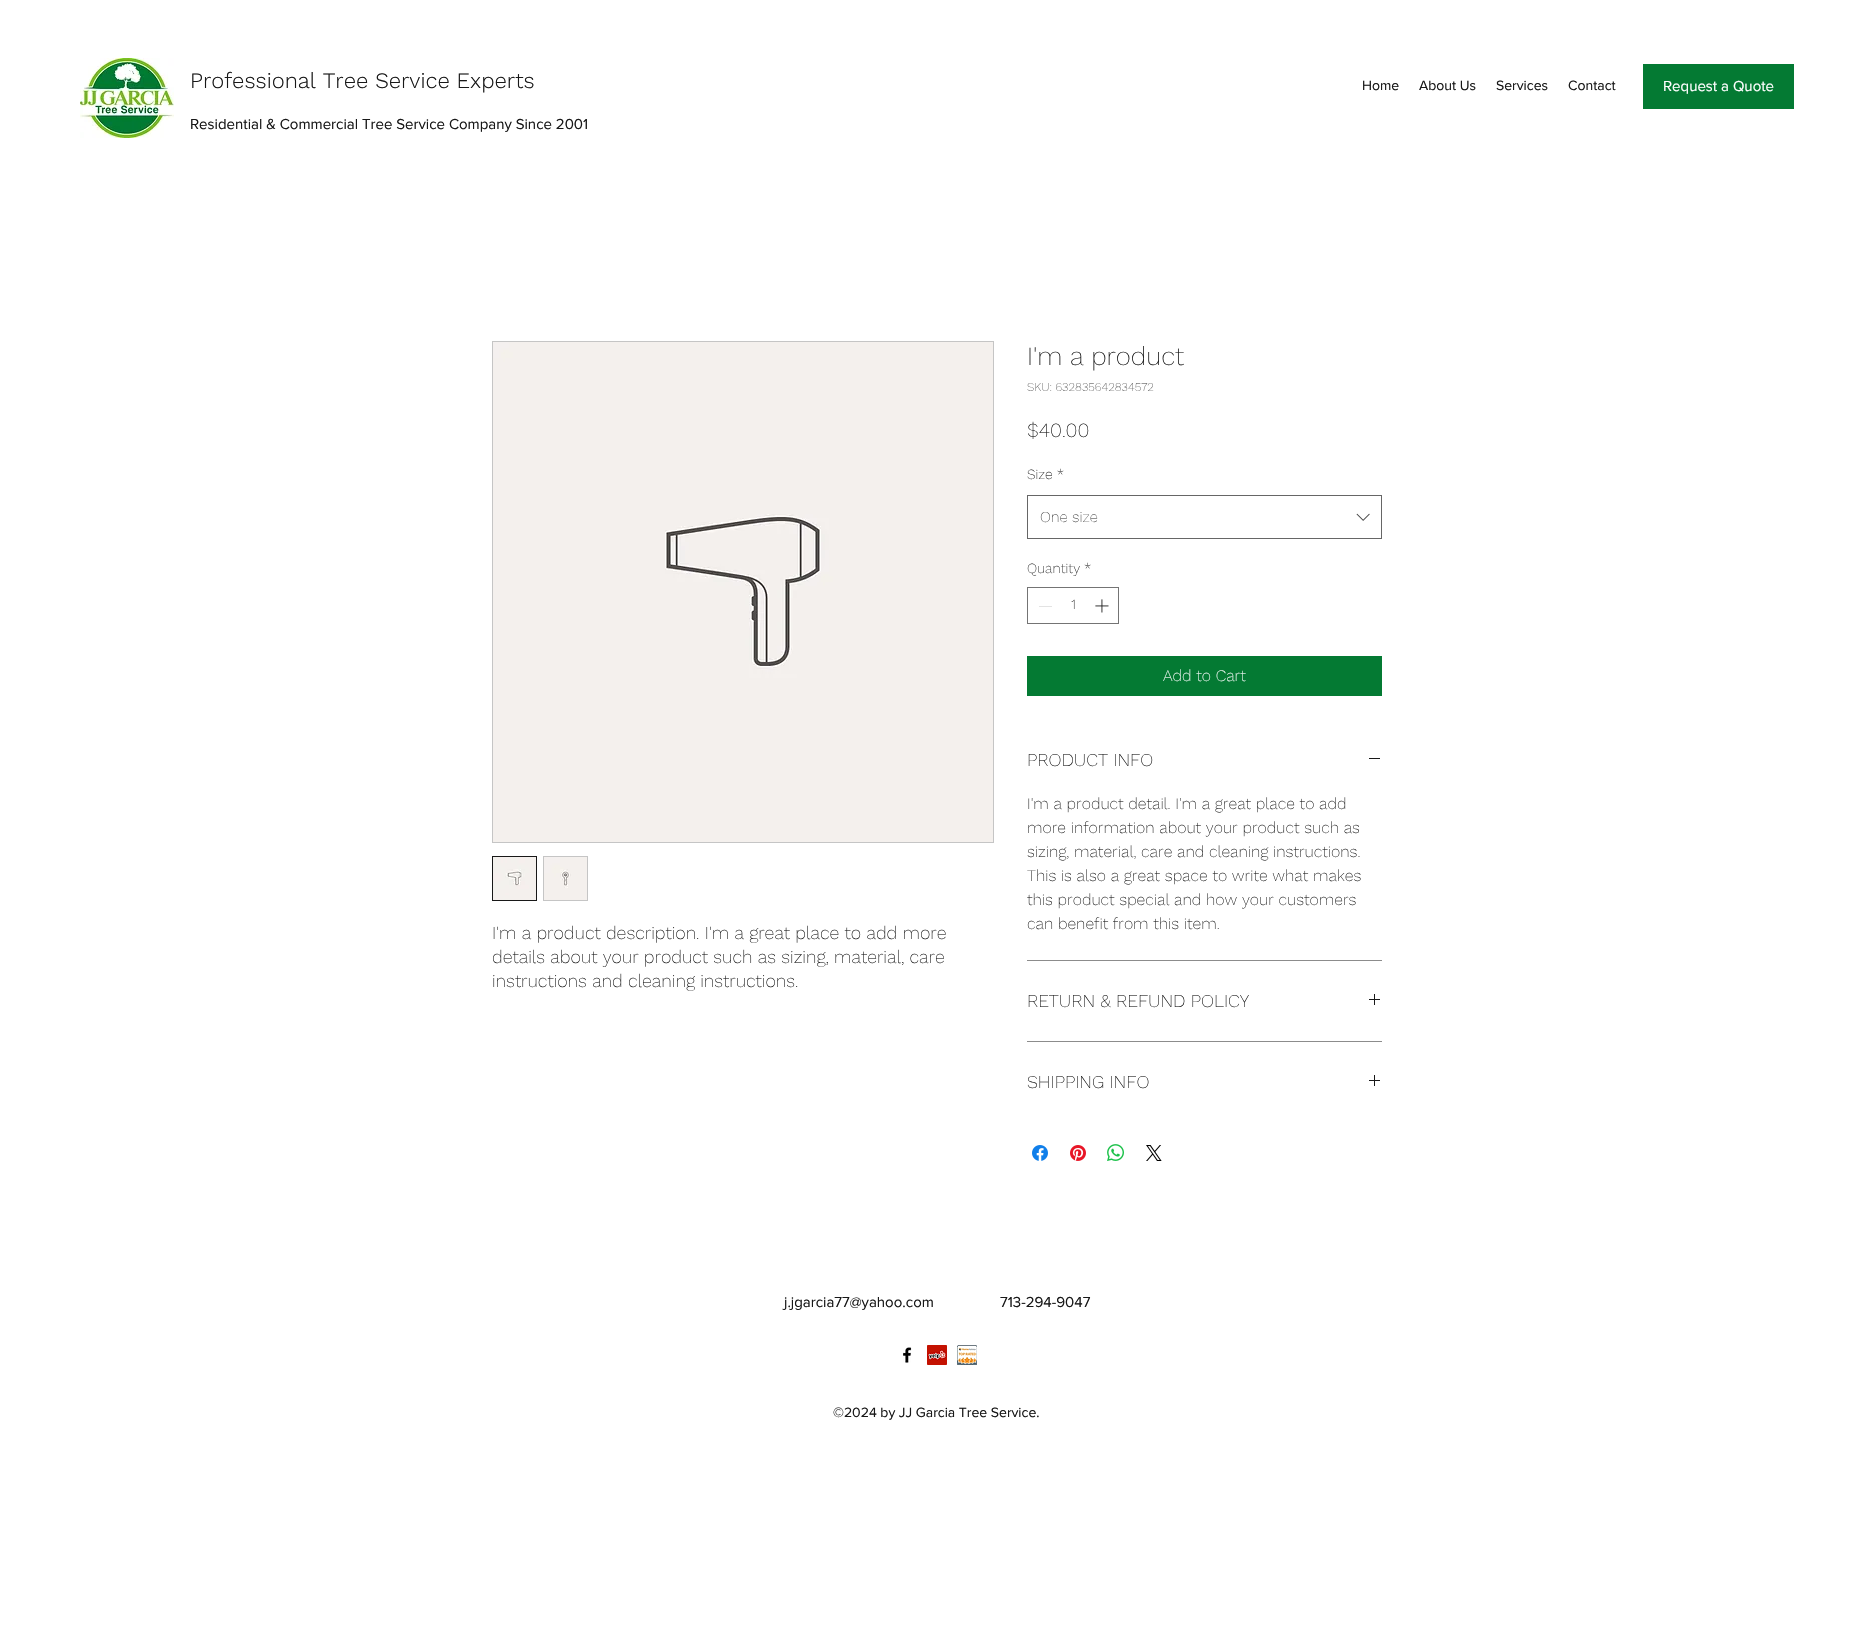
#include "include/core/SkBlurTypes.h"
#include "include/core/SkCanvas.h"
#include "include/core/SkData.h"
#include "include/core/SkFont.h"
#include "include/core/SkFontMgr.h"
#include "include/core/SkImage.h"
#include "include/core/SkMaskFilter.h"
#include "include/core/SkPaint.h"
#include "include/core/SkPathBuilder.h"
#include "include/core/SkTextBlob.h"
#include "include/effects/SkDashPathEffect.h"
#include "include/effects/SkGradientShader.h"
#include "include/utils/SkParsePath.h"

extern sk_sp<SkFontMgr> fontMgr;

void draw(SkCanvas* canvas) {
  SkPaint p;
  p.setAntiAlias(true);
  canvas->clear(SK_ColorWHITE);
  canvas->drawImageRect(SkImages::DeferredFromEncodedData(SkData::MakeFromFileName("images/1.png")), SkRect::MakeLTRB(80, 58, 174, 138), SkSamplingOptions());
  p.setColor(SkColorSetRGB(4, 122, 51));
  canvas->drawRect(SkRect::MakeLTRB(1643, 64, 1794, 109), p);
  p.setStyle(SkPaint::kStroke_Style);
  p.setStrokeWidth(1);
  p.setColor(SkColorSetRGB(197, 197, 197));
  canvas->drawRect(SkRect::MakeLTRB(492.5f, 341.5f, 993.5f, 842.5f), p);
  canvas->drawImageRect(SkImages::DeferredFromEncodedData(SkData::MakeFromFileName("images/2.png")), SkRect::MakeLTRB(493, 342, 993, 842), SkSamplingOptions());
  p.setColor(SkColorSetRGB(24, 24, 24));
  canvas->drawRect(SkRect::MakeLTRB(492.5f, 856.5f, 536.5f, 900.5f), p);
  canvas->drawImageRect(SkImages::DeferredFromEncodedData(SkData::MakeFromFileName("images/3.png")), SkRect::MakeLTRB(493, 857, 536, 900), SkSamplingOptions());
  p.setStyle(SkPaint::kFill_Style);
  p.setColor(SkColorSetRGB(197, 197, 197));
  canvas->drawRect(SkRect::MakeLTRB(543, 856, 588, 901), p);
  canvas->drawImageRect(SkImages::DeferredFromEncodedData(SkData::MakeFromFileName("images/4.png")), SkRect::MakeLTRB(544, 857, 587, 900), SkSamplingOptions());
  p.setStyle(SkPaint::kStroke_Style);
  p.setColor(SkColorSetRGB(102, 102, 102));
  canvas->drawRect(SkRect::MakeLTRB(1027.5f, 495.5f, 1381.5f, 538.5f), p);
  canvas->drawImageRect(SkImages::DeferredFromEncodedData(SkData::MakeFromFileName("images/5.png")), SkRect::MakeLTRB(1356, 513, 1370, 521), SkSamplingOptions());
  p.setColor(SkColorSetRGB(116, 116, 116));
  canvas->drawRect(SkRect::MakeLTRB(1027.5f, 587.5f, 1118.5f, 623.5f), p);
  p.setStyle(SkPaint::kFill_Style);
  p.setColor(SkColorSetRGB(227, 227, 227));
  canvas->drawRect(SkRect::MakeLTRB(1039, 606, 1052, 607), p);
  canvas->drawImageRect(SkImages::DeferredFromEncodedData(SkData::MakeFromFileName("images/6.png")), SkRect::MakeLTRB(1095, 599, 1109, 613), SkSamplingOptions());
  p.setColor(SkColorSetRGB(4, 122, 51));
  canvas->drawRect(SkRect::MakeLTRB(1027, 656, 1382, 696), p);
  p.setColor(SkColorSetRGB(140, 140, 140));
  canvas->drawRect(SkRect::MakeLTRB(1027, 960, 1382, 961), p);
  p.setColor(SkColorSetRGB(24, 24, 24));
  canvas->drawRect(SkRect::MakeLTRB(1369, 758, 1380, 759), p);
  p.setColor(SkColorSetRGB(140, 140, 140));
  canvas->drawRect(SkRect::MakeLTRB(1027, 1041, 1382, 1042), p);
  canvas->drawImageRect(SkImages::DeferredFromEncodedData(SkData::MakeFromFileName("images/7.png")), SkRect::MakeLTRB(1369, 994, 1380, 1005), SkSamplingOptions());
  canvas->drawImageRect(SkImages::DeferredFromEncodedData(SkData::MakeFromFileName("images/7.png")), SkRect::MakeLTRB(1369, 1075, 1380, 1086), SkSamplingOptions());
  canvas->drawImageRect(SkImages::DeferredFromEncodedData(SkData::MakeFromFileName("images/8.png")), SkRect::MakeLTRB(1032, 1145, 1048, 1161), SkSamplingOptions());
  canvas->drawImageRect(SkImages::DeferredFromEncodedData(SkData::MakeFromFileName("images/9.png")), SkRect::MakeLTRB(1070, 1145, 1086, 1161), SkSamplingOptions());
  canvas->drawImageRect(SkImages::DeferredFromEncodedData(SkData::MakeFromFileName("images/10.png")), SkRect::MakeLTRB(1107, 1144, 1124, 1161), SkSamplingOptions());
  canvas->drawImageRect(SkImages::DeferredFromEncodedData(SkData::MakeFromFileName("images/11.png")), SkRect::MakeLTRB(1146, 1145, 1162, 1161), SkSamplingOptions());
  canvas->drawImageRect(SkImages::DeferredFromEncodedData(SkData::MakeFromFileName("images/12.png")), SkRect::MakeLTRB(903, 1347, 912, 1363), SkSamplingOptions());
  canvas->drawImageRect(SkImages::DeferredFromEncodedData(SkData::MakeFromFileName("images/13.png")), SkRect::MakeLTRB(927, 1345, 947, 1365), SkSamplingOptions());
  canvas->drawImageRect(SkImages::DeferredFromEncodedData(SkData::MakeFromFileName("images/14.png")), SkRect::MakeLTRB(957, 1345, 977, 1365), SkSamplingOptions());
  SkFont font1(fontMgr->matchFamilyStyle("Work Sans", SkFontStyle(300, SkFontStyle::kNormal_Width, SkFontStyle::kUpright_Slant)), 22);
  font1.setSubpixel(true);
  p.setColor(SkColorSetRGB(24, 24, 24));
  canvas->drawString("Professional Tree Service Experts", 190, 88, font1, p);
  SkFont font2(fontMgr->matchFamilyStyle("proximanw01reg", SkFontStyle::Normal()), 15);
  font2.setSubpixel(true);
  canvas->drawString("Residential & Commercial Tree Service Company Since 2001", 190, 129, font2, p);
  SkFont font3(fontMgr->matchFamilyStyle("proximanw01reg", SkFontStyle::Normal()), 14);
  font3.setSubpixel(true);
  canvas->drawString("Home", 1362, 90, font3, p);
  canvas->drawString("About Us", 1419, 90, font3, p);
  canvas->drawString("Services", 1496, 90, font3, p);
  canvas->drawString("Contact", 1568, 90, font3, p);
  p.setColor(SK_ColorWHITE);
  canvas->drawString("Request a Quote", 1663, 91, font2, p);
  SkFont font4(fontMgr->matchFamilyStyle("Work Sans", SkFontStyle(200, SkFontStyle::kNormal_Width, SkFontStyle::kUpright_Slant)), 18);
  font4.setSubpixel(true);
  p.setColor(SkColorSetRGB(24, 24, 24));
  canvas->drawString("I'm a product description. I'm a great place to add more", 492, 939, font4, p);
  canvas->drawString("details about your product such as sizing, material, care", 492, 963, font4, p);
  canvas->drawString("instructions and cleaning instructions.", 492, 987, font4, p);
  SkFont font5(fontMgr->matchFamilyStyle("Work Sans", SkFontStyle(200, SkFontStyle::kNormal_Width, SkFontStyle::kUpright_Slant)), 26);
  font5.setSubpixel(true);
  canvas->drawString("I'm a product", 1027, 365, font5, p);
  SkFont font6(fontMgr->matchFamilyStyle("Work Sans", SkFontStyle(200, SkFontStyle::kNormal_Width, SkFontStyle::kUpright_Slant)), 12);
  font6.setSubpixel(true);
  p.setColor(SkColorSetRGB(82, 82, 82));
  canvas->drawString("SKU: 632835642834572", 1027, 391, font6, p);
  SkFont font7(fontMgr->matchFamilyStyle("Work Sans", SkFontStyle(200, SkFontStyle::kNormal_Width, SkFontStyle::kUpright_Slant)), 20);
  font7.setSubpixel(true);
  p.setColor(SkColorSetRGB(24, 24, 24));
  canvas->drawString("$40.00", 1027, 437, font7, p);
  SkFont font8(fontMgr->matchFamilyStyle("Work Sans", SkFontStyle(200, SkFontStyle::kNormal_Width, SkFontStyle::kUpright_Slant)), 14);
  font8.setSubpixel(true);
  canvas->drawString("Size *", 1027, 479, font8, p);
  SkFont font9(fontMgr->matchFamilyStyle("Work Sans", SkFontStyle(200, SkFontStyle::kNormal_Width, SkFontStyle::kUpright_Slant)), 15);
  font9.setSubpixel(true);
  p.setColor(SkColorSetRGB(68, 68, 68));
  canvas->drawString("One size", 1040, 522, font9, p);
  p.setColor(SkColorSetRGB(24, 24, 24));
  canvas->drawString("Quantity *", 1027, 573, font8, p);
  canvas->drawString("1", 1071, 609, font8, p);
  SkFont font10(fontMgr->matchFamilyStyle("Work Sans", SkFontStyle(200, SkFontStyle::kNormal_Width, SkFontStyle::kUpright_Slant)), 16);
  font10.setSubpixel(true);
  p.setColor(SK_ColorWHITE);
  canvas->drawString("Add to Cart", 1163, 681, font10, p);
  p.setColor(SkColorSetRGB(24, 24, 24));
  canvas->drawString("PRODUCT INFO", 1027, 766, font4, p);
  canvas->drawString("I'm a product detail. I'm a great place to add", 1027, 809, font10, p);
  canvas->drawString("more information about your product such as", 1027, 833, font10, p);
  canvas->drawString("sizing, material, care and cleaning instructions.", 1027, 857, font10, p);
  canvas->drawString("This is also a great space to write what makes", 1027, 881, font10, p);
  canvas->drawString("this product special and how your customers", 1027, 905, font10, p);
  canvas->drawString("can benefit from this item.", 1027, 929, font10, p);
  canvas->drawString("RETURN & REFUND POLICY", 1027, 1007, font4, p);
  canvas->drawString("SHIPPING INFO", 1027, 1088, font4, p);
  canvas->drawString("j.jgarcia77@yahoo.com", 784, 1307, font2, p);
  canvas->drawString("713-294-9047", 1000, 1307, font2, p);
  canvas->drawString("©2024 by JJ Garcia Tree Service.", 833, 1417, font3, p);
}
